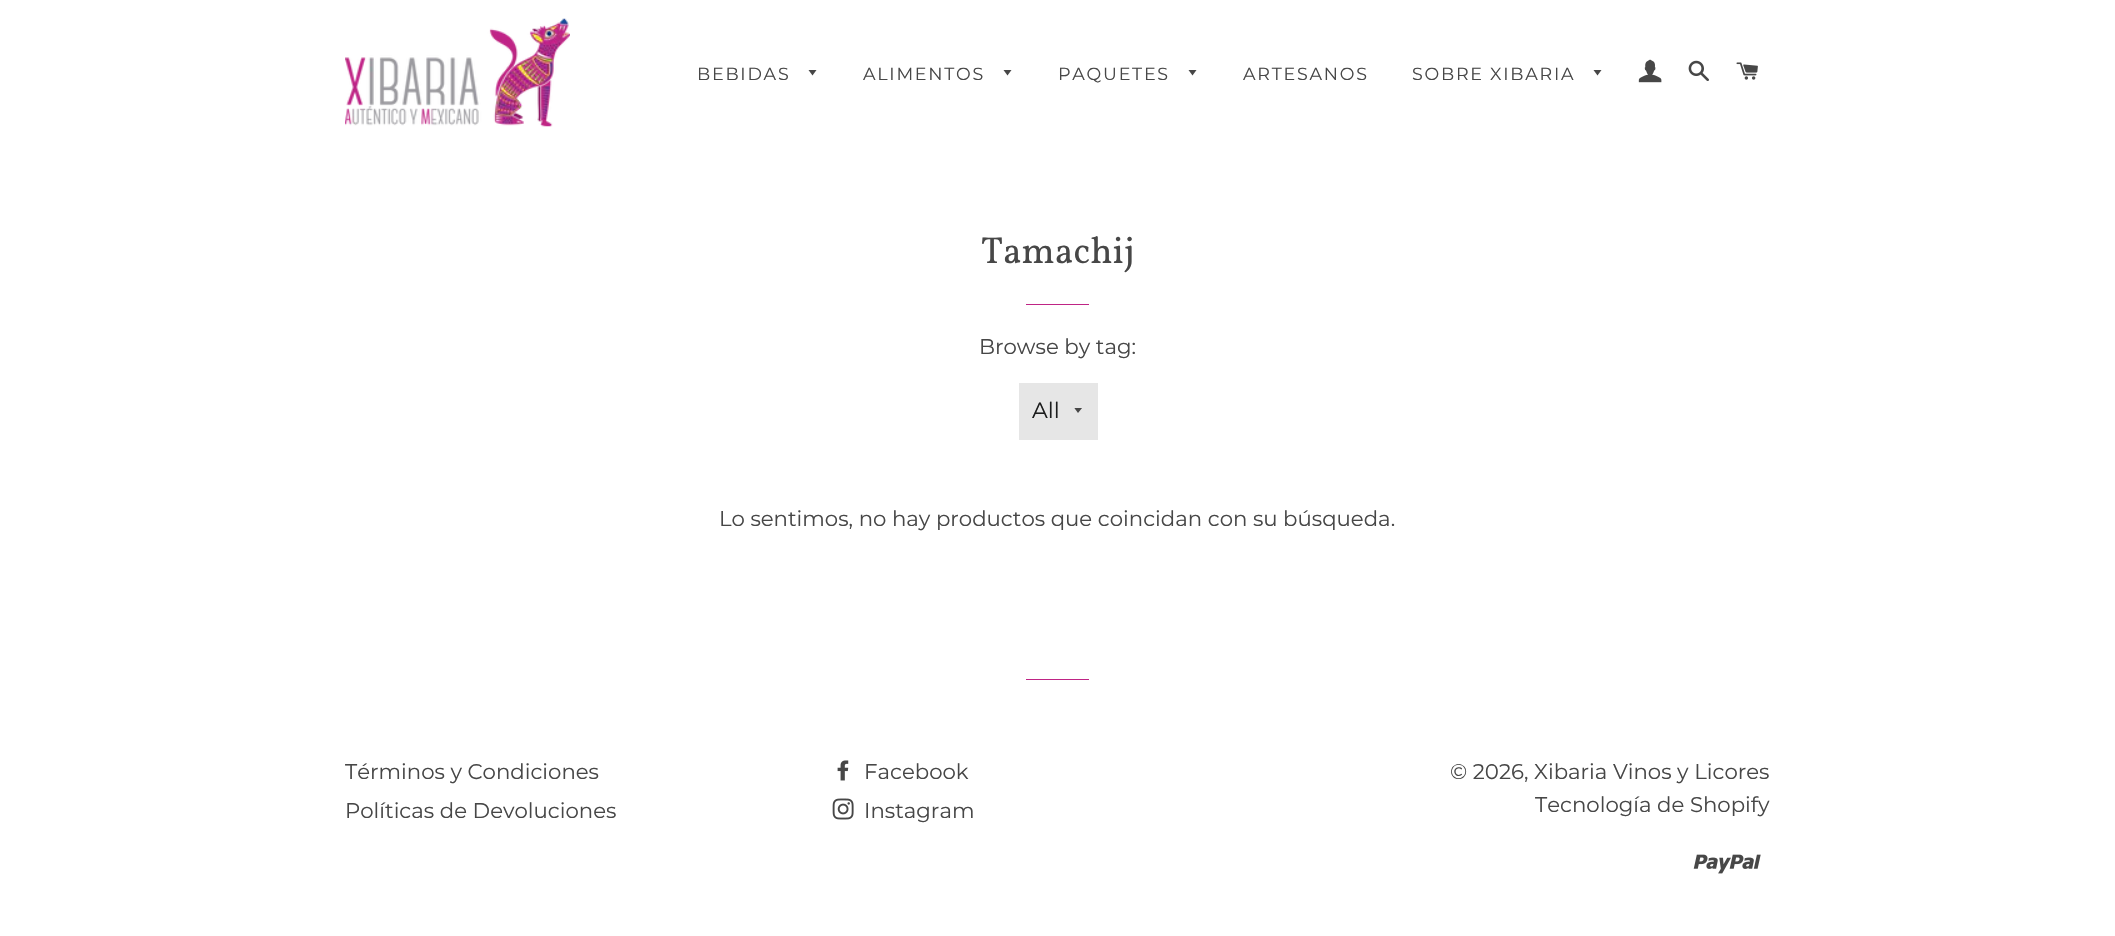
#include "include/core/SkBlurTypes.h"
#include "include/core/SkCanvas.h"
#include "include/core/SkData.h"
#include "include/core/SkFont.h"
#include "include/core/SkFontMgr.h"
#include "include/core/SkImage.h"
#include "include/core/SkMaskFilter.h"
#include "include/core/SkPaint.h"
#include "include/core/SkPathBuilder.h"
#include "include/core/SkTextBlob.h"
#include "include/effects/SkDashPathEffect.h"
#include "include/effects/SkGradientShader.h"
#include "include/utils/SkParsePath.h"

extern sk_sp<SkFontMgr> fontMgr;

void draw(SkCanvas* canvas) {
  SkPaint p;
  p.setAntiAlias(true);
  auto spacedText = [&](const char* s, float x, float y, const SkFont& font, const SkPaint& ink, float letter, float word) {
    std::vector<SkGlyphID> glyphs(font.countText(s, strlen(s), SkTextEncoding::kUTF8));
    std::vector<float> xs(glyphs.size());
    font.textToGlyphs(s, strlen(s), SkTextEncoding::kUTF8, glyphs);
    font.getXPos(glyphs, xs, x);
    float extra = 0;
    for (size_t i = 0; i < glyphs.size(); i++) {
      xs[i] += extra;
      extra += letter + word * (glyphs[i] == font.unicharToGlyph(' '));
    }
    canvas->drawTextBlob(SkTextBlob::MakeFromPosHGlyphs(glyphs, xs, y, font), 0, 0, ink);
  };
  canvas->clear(SK_ColorWHITE);
  canvas->drawImageRect(SkImages::DeferredFromEncodedData(SkData::MakeFromFileName("images/1.png")), SkRect::MakeLTRB(345, 18, 570, 127), SkSamplingOptions());
  p.setColor(SkColorSetRGB(71, 71, 71));
  canvas->drawPath(SkPathBuilder().moveTo(808.5f, 70).lineTo(812.5f, 75.5f).lineTo(816.5f, 70).close().detach(), p);
  canvas->drawPath(SkPathBuilder().moveTo(1003.5f, 70).lineTo(1007.5f, 75.5f).lineTo(1011.5f, 70).close().detach(), p);
  canvas->drawPath(SkPathBuilder().moveTo(1188.5f, 70).lineTo(1192.5f, 75.5f).lineTo(1196.5f, 70).close().detach(), p);
  canvas->drawPath(SkPathBuilder().moveTo(1593.5f, 70).lineTo(1597.5f, 75.5f).lineTo(1601.5f, 70).close().detach(), p);
  canvas->drawImageRect(SkImages::DeferredFromEncodedData(SkData::MakeFromFileName("images/2.png")), SkRect::MakeLTRB(1638, 59, 1662, 83), SkSamplingOptions());
  canvas->drawImageRect(SkImages::DeferredFromEncodedData(SkData::MakeFromFileName("images/3.png")), SkRect::MakeLTRB(1688, 60, 1709, 81), SkSamplingOptions());
  canvas->drawImageRect(SkImages::DeferredFromEncodedData(SkData::MakeFromFileName("images/4.png")), SkRect::MakeLTRB(1736, 62, 1758, 80), SkSamplingOptions());
  p.setColor(SkColorSetRGB(191, 36, 133));
  canvas->drawRect(SkRect::MakeLTRB(1026, 304, 1089, 305), p);
  p.setColor(SkColorSetRGB(230, 230, 230));
  canvas->drawRect(SkRect::MakeLTRB(1019, 383, 1098, 440), p);
  canvas->save();
  canvas->clipRect(SkRect::MakeLTRB(1074, 408, 1084, 414));
  p.setColor(SkColorSetRGB(71, 71, 71));
  canvas->drawPath(SkPathBuilder().moveTo(1074, 407.5f).lineTo(1078, 413).lineTo(1082.5f, 407.5f).close().detach(), p);
  canvas->restore();
  p.setColor(SkColorSetRGB(191, 36, 133));
  canvas->drawRect(SkRect::MakeLTRB(1026, 679, 1089, 680), p);
  canvas->drawImageRect(SkImages::DeferredFromEncodedData(SkData::MakeFromFileName("images/5.png")), SkRect::MakeLTRB(837, 760, 849, 781), SkSamplingOptions());
  canvas->drawImageRect(SkImages::DeferredFromEncodedData(SkData::MakeFromFileName("images/6.png")), SkRect::MakeLTRB(832, 798, 854, 820), SkSamplingOptions());
  canvas->drawImageRect(SkImages::DeferredFromEncodedData(SkData::MakeFromFileName("images/7.png")), SkRect::MakeLTRB(1693, 854, 1761, 874), SkSamplingOptions());
  SkFont font1(fontMgr->matchFamilyStyle("Montserrat", SkFontStyle(100, SkFontStyle::kNormal_Width, SkFontStyle::kUpright_Slant)), 17.5f);
  font1.setSubpixel(true);
  p.setColor(SkColorSetRGB(71, 71, 71));
  spacedText("BEBIDAS", 697, 80, font1, p, 1.75f, 0);
  spacedText("ALIMENTOS", 863, 80, font1, p, 1.75f, 0);
  spacedText("PAQUETES", 1058, 80, font1, p, 1.75f, 0);
  spacedText("ARTESANOS", 1243, 80, font1, p, 1.75f, 0);
  spacedText("SOBRE XIBARIA", 1412, 80, font1, p, 1.75f, 0);
  SkFont font2(fontMgr->matchFamilyStyle("Vollkorn", SkFontStyle::Normal()), 37.5f);
  font2.setSubpixel(true);
  canvas->drawString("Tamachij", 981, 263, font2, p);
  SkFont font3(fontMgr->matchFamilyStyle("Montserrat", SkFontStyle(100, SkFontStyle::kNormal_Width, SkFontStyle::kUpright_Slant)), 21.25f);
  font3.setSubpixel(true);
  canvas->drawString("Browse by tag:", 979, 354, font3, p);
  SkFont font4(fontMgr->matchFamilyStyle("Montserrat", SkFontStyle(100, SkFontStyle::kNormal_Width, SkFontStyle::kUpright_Slant)), 22);
  font4.setSubpixel(true);
  p.setColor(SkColorSetRGB(28, 29, 29));
  canvas->drawString("All", 1032, 418, font4, p);
  p.setColor(SkColorSetRGB(71, 71, 71));
  canvas->drawString("Lo sentimos, no hay productos que coincidan con su búsqueda.", 719, 526, font3, p);
  canvas->drawString("Términos y Condiciones", 345, 779, font3, p);
  canvas->drawString("Políticas de Devoluciones", 345, 818, font3, p);
  canvas->drawString("Facebook", 864, 779, font3, p);
  canvas->drawString("Instagram", 864, 818, font3, p);
  canvas->drawString("© 2026, Xibaria Vinos y Licores", 1450, 779, font3, p);
  canvas->drawString("Tecnología de Shopify", 1535, 812, font3, p);
}
